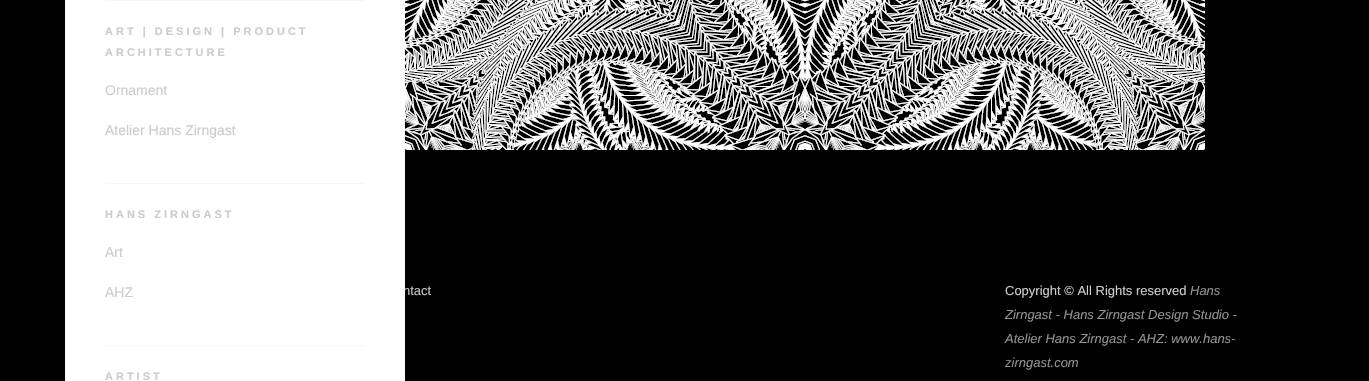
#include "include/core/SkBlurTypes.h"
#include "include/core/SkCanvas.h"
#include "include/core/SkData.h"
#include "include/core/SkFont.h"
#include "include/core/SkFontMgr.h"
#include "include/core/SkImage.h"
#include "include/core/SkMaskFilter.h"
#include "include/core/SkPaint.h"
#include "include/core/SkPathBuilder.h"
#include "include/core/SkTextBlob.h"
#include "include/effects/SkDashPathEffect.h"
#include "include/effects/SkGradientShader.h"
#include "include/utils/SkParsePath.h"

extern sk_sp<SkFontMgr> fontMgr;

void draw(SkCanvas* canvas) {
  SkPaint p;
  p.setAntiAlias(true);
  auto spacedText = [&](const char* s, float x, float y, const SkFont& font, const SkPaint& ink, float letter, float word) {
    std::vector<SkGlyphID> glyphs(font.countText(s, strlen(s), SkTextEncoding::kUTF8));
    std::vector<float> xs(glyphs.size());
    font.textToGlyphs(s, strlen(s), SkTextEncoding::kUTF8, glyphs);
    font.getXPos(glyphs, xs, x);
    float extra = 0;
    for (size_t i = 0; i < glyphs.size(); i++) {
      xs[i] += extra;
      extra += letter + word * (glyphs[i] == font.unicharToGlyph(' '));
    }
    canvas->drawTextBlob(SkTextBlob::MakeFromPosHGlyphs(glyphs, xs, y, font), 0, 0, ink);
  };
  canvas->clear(SK_ColorBLACK);
  canvas->drawImageRect(SkImages::DeferredFromEncodedData(SkData::MakeFromFileName("images/1.png")), SkRect::MakeLTRB(405, 0, 1205, 150), SkSamplingOptions());
  SkFont font1(fontMgr->matchFamilyStyle("Liberation Sans", SkFontStyle::Normal()), 13);
  font1.setSubpixel(true);
  p.setColor(SkColorSetRGB(194, 194, 194));
  canvas->drawString("ntact", 403, 295, font1, p);
  p.setColor(SK_ColorWHITE);
  canvas->drawRect(SkRect::MakeLTRB(65, 0, 405, 381), p);
  SkFont font2(fontMgr->matchFamilyStyle("Liberation Sans", SkFontStyle::Bold()), 11);
  font2.setSubpixel(true);
  p.setColor(SkColorSetRGB(204, 204, 204));
  spacedText("ARTIST", 105, 380, font2, p, 3, 0);
  p.setColor(SkColorSetRGB(245, 245, 245));
  canvas->drawRect(SkRect::MakeLTRB(105, 345, 365, 346), p);
  SkFont font3(fontMgr->matchFamilyStyle("Liberation Sans", SkFontStyle::Normal()), 14);
  font3.setSubpixel(true);
  p.setColor(SkColorSetRGB(204, 204, 204));
  canvas->drawString("AHZ", 105, 297, font3, p);
  canvas->drawString("Art", 105, 257, font3, p);
  spacedText("HANS ZIRNGAST", 105, 218, font2, p, 3, 0);
  p.setColor(SkColorSetRGB(245, 245, 245));
  canvas->drawRect(SkRect::MakeLTRB(105, 183, 365, 184), p);
  p.setColor(SkColorSetRGB(204, 204, 204));
  canvas->drawString("Atelier Hans Zirngast", 105, 135, font3, p);
  canvas->drawString("Ornament", 105, 95, font3, p);
  spacedText("ARCHITECTURE", 105, 56, font2, p, 3, 0);
  spacedText("ART | DESIGN | PRODUCT", 105, 35, font2, p, 3, 0);
  p.setColor(SkColorSetRGB(245, 245, 245));
  canvas->drawRect(SkRect::MakeLTRB(105, 0, 365, 1), p);
  p.setColor(SkColorSetRGB(204, 204, 204));
  canvas->drawString("Copyright © All Rights reserved", 1005, 295, font1, p);
  SkFont font4(fontMgr->matchFamilyStyle("Liberation Sans", SkFontStyle::Italic()), 13);
  font4.setSubpixel(true);
  p.setColor(SkColorSetRGB(146, 146, 146));
  canvas->drawString("Hans", 1190, 295, font4, p);
  canvas->drawString("Zirngast - Hans Zirngast Design Studio -", 1005, 319, font4, p);
  canvas->drawString("Atelier Hans Zirngast - AHZ: www.hans-", 1005, 343, font4, p);
  canvas->drawString("zirngast.com", 1005, 367, font4, p);
}
